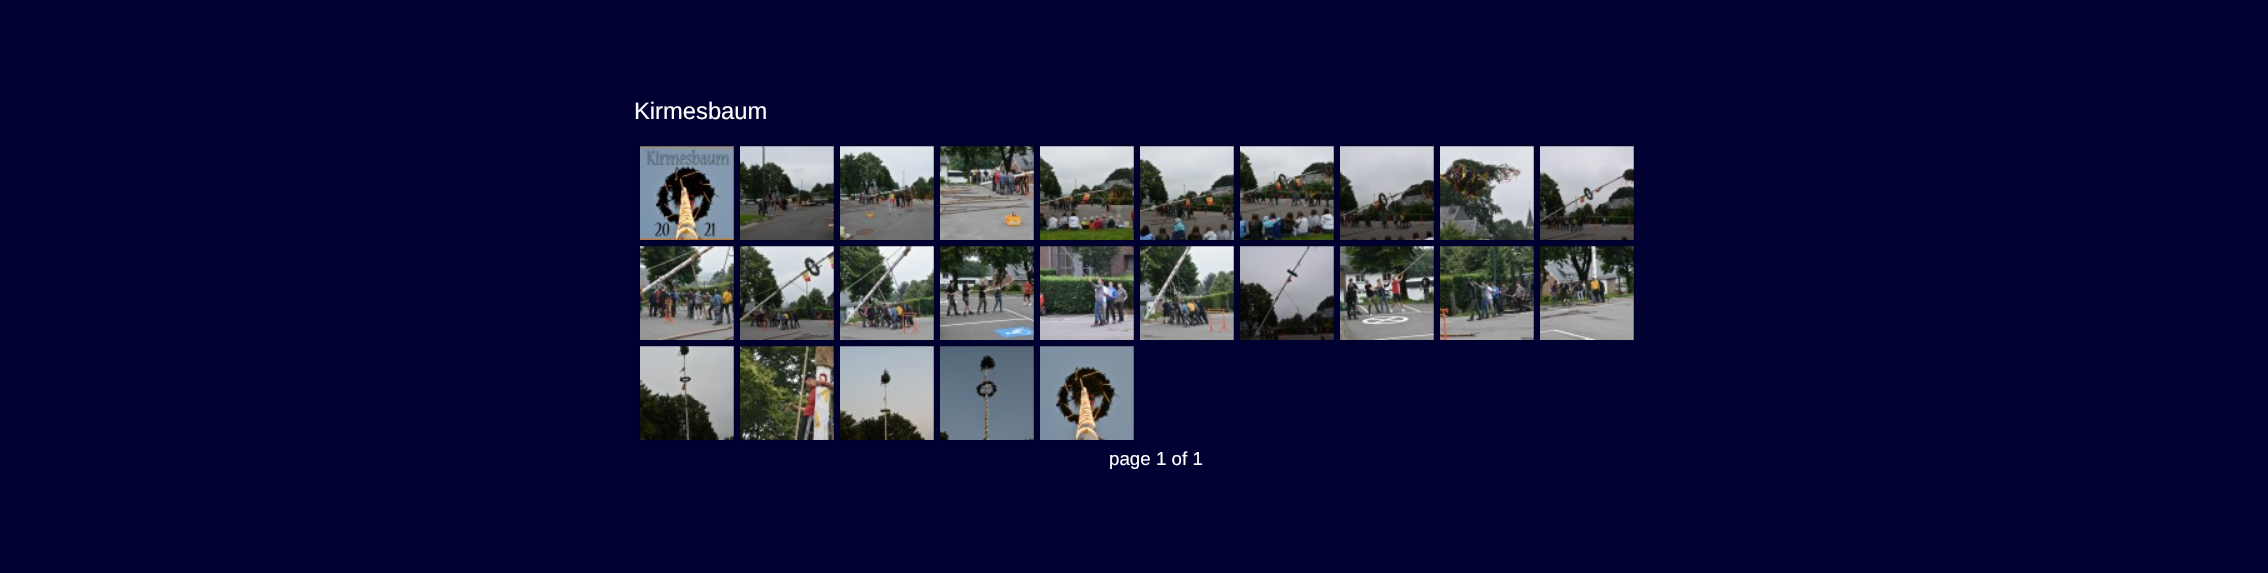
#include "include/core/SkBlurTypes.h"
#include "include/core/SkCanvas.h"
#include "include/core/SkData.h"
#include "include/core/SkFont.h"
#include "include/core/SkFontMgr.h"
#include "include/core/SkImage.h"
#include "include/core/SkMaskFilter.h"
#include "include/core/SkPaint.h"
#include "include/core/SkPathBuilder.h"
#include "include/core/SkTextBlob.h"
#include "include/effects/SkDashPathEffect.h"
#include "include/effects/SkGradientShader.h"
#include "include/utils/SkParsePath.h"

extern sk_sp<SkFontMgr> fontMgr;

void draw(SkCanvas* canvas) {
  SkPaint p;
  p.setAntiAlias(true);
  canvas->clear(SkColorSetRGB(0, 0, 51));
  p.setColor(SkColorSetARGB(102, 0, 0, 0));
  p.setMaskFilter(SkMaskFilter::MakeBlur(kNormal_SkBlurStyle, 2));
  canvas->drawRect(SkRect::MakeLTRB(640, 146, 734, 240), p);
  p.setMaskFilter(nullptr);
  p.setMaskFilter(SkMaskFilter::MakeBlur(kNormal_SkBlurStyle, 2));
  canvas->drawRect(SkRect::MakeLTRB(740, 146, 834, 240), p);
  p.setMaskFilter(nullptr);
  p.setMaskFilter(SkMaskFilter::MakeBlur(kNormal_SkBlurStyle, 2));
  canvas->drawRect(SkRect::MakeLTRB(640, 246, 734, 340), p);
  p.setMaskFilter(nullptr);
  p.setMaskFilter(SkMaskFilter::MakeBlur(kNormal_SkBlurStyle, 2));
  canvas->drawRect(SkRect::MakeLTRB(740, 246, 834, 340), p);
  p.setMaskFilter(nullptr);
  canvas->drawImageRect(SkImages::DeferredFromEncodedData(SkData::MakeFromFileName("images/1.png")), SkRect::MakeLTRB(640, 146, 734, 240), SkSamplingOptions());
  p.setMaskFilter(SkMaskFilter::MakeBlur(kNormal_SkBlurStyle, 2));
  canvas->drawRect(SkRect::MakeLTRB(840, 146, 934, 240), p);
  p.setMaskFilter(nullptr);
  p.setMaskFilter(SkMaskFilter::MakeBlur(kNormal_SkBlurStyle, 2));
  canvas->drawRect(SkRect::MakeLTRB(840, 246, 934, 340), p);
  p.setMaskFilter(nullptr);
  canvas->drawImageRect(SkImages::DeferredFromEncodedData(SkData::MakeFromFileName("images/2.png")), SkRect::MakeLTRB(740, 146, 834, 240), SkSamplingOptions());
  p.setMaskFilter(SkMaskFilter::MakeBlur(kNormal_SkBlurStyle, 2));
  canvas->drawRect(SkRect::MakeLTRB(940, 146, 1034, 240), p);
  p.setMaskFilter(nullptr);
  p.setMaskFilter(SkMaskFilter::MakeBlur(kNormal_SkBlurStyle, 2));
  canvas->drawRect(SkRect::MakeLTRB(940, 246, 1034, 340), p);
  p.setMaskFilter(nullptr);
  canvas->drawImageRect(SkImages::DeferredFromEncodedData(SkData::MakeFromFileName("images/3.png")), SkRect::MakeLTRB(840, 146, 934, 240), SkSamplingOptions());
  p.setMaskFilter(SkMaskFilter::MakeBlur(kNormal_SkBlurStyle, 2));
  canvas->drawRect(SkRect::MakeLTRB(1040, 146, 1134, 240), p);
  p.setMaskFilter(nullptr);
  p.setMaskFilter(SkMaskFilter::MakeBlur(kNormal_SkBlurStyle, 2));
  canvas->drawRect(SkRect::MakeLTRB(1040, 246, 1134, 340), p);
  p.setMaskFilter(nullptr);
  canvas->drawImageRect(SkImages::DeferredFromEncodedData(SkData::MakeFromFileName("images/4.png")), SkRect::MakeLTRB(940, 146, 1034, 240), SkSamplingOptions());
  p.setMaskFilter(SkMaskFilter::MakeBlur(kNormal_SkBlurStyle, 2));
  canvas->drawRect(SkRect::MakeLTRB(1140, 146, 1234, 240), p);
  p.setMaskFilter(nullptr);
  p.setMaskFilter(SkMaskFilter::MakeBlur(kNormal_SkBlurStyle, 2));
  canvas->drawRect(SkRect::MakeLTRB(1140, 246, 1234, 340), p);
  p.setMaskFilter(nullptr);
  canvas->drawImageRect(SkImages::DeferredFromEncodedData(SkData::MakeFromFileName("images/5.png")), SkRect::MakeLTRB(1040, 146, 1134, 240), SkSamplingOptions());
  p.setMaskFilter(SkMaskFilter::MakeBlur(kNormal_SkBlurStyle, 2));
  canvas->drawRect(SkRect::MakeLTRB(1240, 146, 1334, 240), p);
  p.setMaskFilter(nullptr);
  p.setMaskFilter(SkMaskFilter::MakeBlur(kNormal_SkBlurStyle, 2));
  canvas->drawRect(SkRect::MakeLTRB(1240, 246, 1334, 340), p);
  p.setMaskFilter(nullptr);
  canvas->drawImageRect(SkImages::DeferredFromEncodedData(SkData::MakeFromFileName("images/6.png")), SkRect::MakeLTRB(1140, 146, 1234, 240), SkSamplingOptions());
  p.setMaskFilter(SkMaskFilter::MakeBlur(kNormal_SkBlurStyle, 2));
  canvas->drawRect(SkRect::MakeLTRB(1340, 146, 1434, 240), p);
  p.setMaskFilter(nullptr);
  p.setMaskFilter(SkMaskFilter::MakeBlur(kNormal_SkBlurStyle, 2));
  canvas->drawRect(SkRect::MakeLTRB(1340, 246, 1434, 340), p);
  p.setMaskFilter(nullptr);
  canvas->drawImageRect(SkImages::DeferredFromEncodedData(SkData::MakeFromFileName("images/7.png")), SkRect::MakeLTRB(1240, 146, 1334, 240), SkSamplingOptions());
  p.setMaskFilter(SkMaskFilter::MakeBlur(kNormal_SkBlurStyle, 2));
  canvas->drawRect(SkRect::MakeLTRB(1440, 146, 1534, 240), p);
  p.setMaskFilter(nullptr);
  p.setMaskFilter(SkMaskFilter::MakeBlur(kNormal_SkBlurStyle, 2));
  canvas->drawRect(SkRect::MakeLTRB(1440, 246, 1534, 340), p);
  p.setMaskFilter(nullptr);
  canvas->drawImageRect(SkImages::DeferredFromEncodedData(SkData::MakeFromFileName("images/8.png")), SkRect::MakeLTRB(1340, 146, 1434, 240), SkSamplingOptions());
  p.setMaskFilter(SkMaskFilter::MakeBlur(kNormal_SkBlurStyle, 2));
  canvas->drawRect(SkRect::MakeLTRB(1540, 146, 1634, 240), p);
  p.setMaskFilter(nullptr);
  p.setMaskFilter(SkMaskFilter::MakeBlur(kNormal_SkBlurStyle, 2));
  canvas->drawRect(SkRect::MakeLTRB(1540, 246, 1634, 340), p);
  p.setMaskFilter(nullptr);
  canvas->drawImageRect(SkImages::DeferredFromEncodedData(SkData::MakeFromFileName("images/9.png")), SkRect::MakeLTRB(1440, 146, 1534, 240), SkSamplingOptions());
  canvas->drawImageRect(SkImages::DeferredFromEncodedData(SkData::MakeFromFileName("images/10.png")), SkRect::MakeLTRB(1540, 146, 1634, 240), SkSamplingOptions());
  p.setMaskFilter(SkMaskFilter::MakeBlur(kNormal_SkBlurStyle, 2));
  canvas->drawRect(SkRect::MakeLTRB(640, 346, 734, 440), p);
  p.setMaskFilter(nullptr);
  p.setMaskFilter(SkMaskFilter::MakeBlur(kNormal_SkBlurStyle, 2));
  canvas->drawRect(SkRect::MakeLTRB(740, 346, 834, 440), p);
  p.setMaskFilter(nullptr);
  canvas->drawImageRect(SkImages::DeferredFromEncodedData(SkData::MakeFromFileName("images/11.png")), SkRect::MakeLTRB(640, 246, 734, 340), SkSamplingOptions());
  p.setMaskFilter(SkMaskFilter::MakeBlur(kNormal_SkBlurStyle, 2));
  canvas->drawRect(SkRect::MakeLTRB(840, 346, 934, 440), p);
  p.setMaskFilter(nullptr);
  canvas->drawImageRect(SkImages::DeferredFromEncodedData(SkData::MakeFromFileName("images/12.png")), SkRect::MakeLTRB(740, 246, 834, 340), SkSamplingOptions());
  p.setMaskFilter(SkMaskFilter::MakeBlur(kNormal_SkBlurStyle, 2));
  canvas->drawRect(SkRect::MakeLTRB(940, 346, 1034, 440), p);
  p.setMaskFilter(nullptr);
  canvas->drawImageRect(SkImages::DeferredFromEncodedData(SkData::MakeFromFileName("images/13.png")), SkRect::MakeLTRB(840, 246, 934, 340), SkSamplingOptions());
  p.setMaskFilter(SkMaskFilter::MakeBlur(kNormal_SkBlurStyle, 2));
  canvas->drawRect(SkRect::MakeLTRB(1040, 346, 1134, 440), p);
  p.setMaskFilter(nullptr);
  canvas->drawImageRect(SkImages::DeferredFromEncodedData(SkData::MakeFromFileName("images/14.png")), SkRect::MakeLTRB(940, 246, 1034, 340), SkSamplingOptions());
  canvas->drawImageRect(SkImages::DeferredFromEncodedData(SkData::MakeFromFileName("images/15.png")), SkRect::MakeLTRB(1040, 246, 1134, 340), SkSamplingOptions());
  canvas->drawImageRect(SkImages::DeferredFromEncodedData(SkData::MakeFromFileName("images/16.png")), SkRect::MakeLTRB(1140, 246, 1234, 340), SkSamplingOptions());
  canvas->drawImageRect(SkImages::DeferredFromEncodedData(SkData::MakeFromFileName("images/17.png")), SkRect::MakeLTRB(1240, 246, 1334, 340), SkSamplingOptions());
  canvas->drawImageRect(SkImages::DeferredFromEncodedData(SkData::MakeFromFileName("images/18.png")), SkRect::MakeLTRB(1340, 246, 1434, 340), SkSamplingOptions());
  canvas->drawImageRect(SkImages::DeferredFromEncodedData(SkData::MakeFromFileName("images/19.png")), SkRect::MakeLTRB(1440, 246, 1534, 340), SkSamplingOptions());
  canvas->drawImageRect(SkImages::DeferredFromEncodedData(SkData::MakeFromFileName("images/20.png")), SkRect::MakeLTRB(1540, 246, 1634, 340), SkSamplingOptions());
  canvas->drawImageRect(SkImages::DeferredFromEncodedData(SkData::MakeFromFileName("images/21.png")), SkRect::MakeLTRB(640, 346, 734, 440), SkSamplingOptions());
  canvas->drawImageRect(SkImages::DeferredFromEncodedData(SkData::MakeFromFileName("images/22.png")), SkRect::MakeLTRB(740, 346, 834, 440), SkSamplingOptions());
  canvas->drawImageRect(SkImages::DeferredFromEncodedData(SkData::MakeFromFileName("images/23.png")), SkRect::MakeLTRB(840, 346, 934, 440), SkSamplingOptions());
  canvas->drawImageRect(SkImages::DeferredFromEncodedData(SkData::MakeFromFileName("images/24.png")), SkRect::MakeLTRB(940, 346, 1034, 440), SkSamplingOptions());
  canvas->drawImageRect(SkImages::DeferredFromEncodedData(SkData::MakeFromFileName("images/25.png")), SkRect::MakeLTRB(1040, 346, 1134, 440), SkSamplingOptions());
  SkFont font1(fontMgr->matchFamilyStyle("Liberation Sans", SkFontStyle::Normal()), 23.75f);
  font1.setSubpixel(true);
  p.setColor(SK_ColorWHITE);
  canvas->drawString("Kirmesbaum", 634, 119, font1, p);
  SkFont font2(fontMgr->matchFamilyStyle("Liberation Sans", SkFontStyle::Normal()), 18.75f);
  font2.setSubpixel(true);
  canvas->drawString("page 1 of 1", 1109, 465, font2, p);
}
